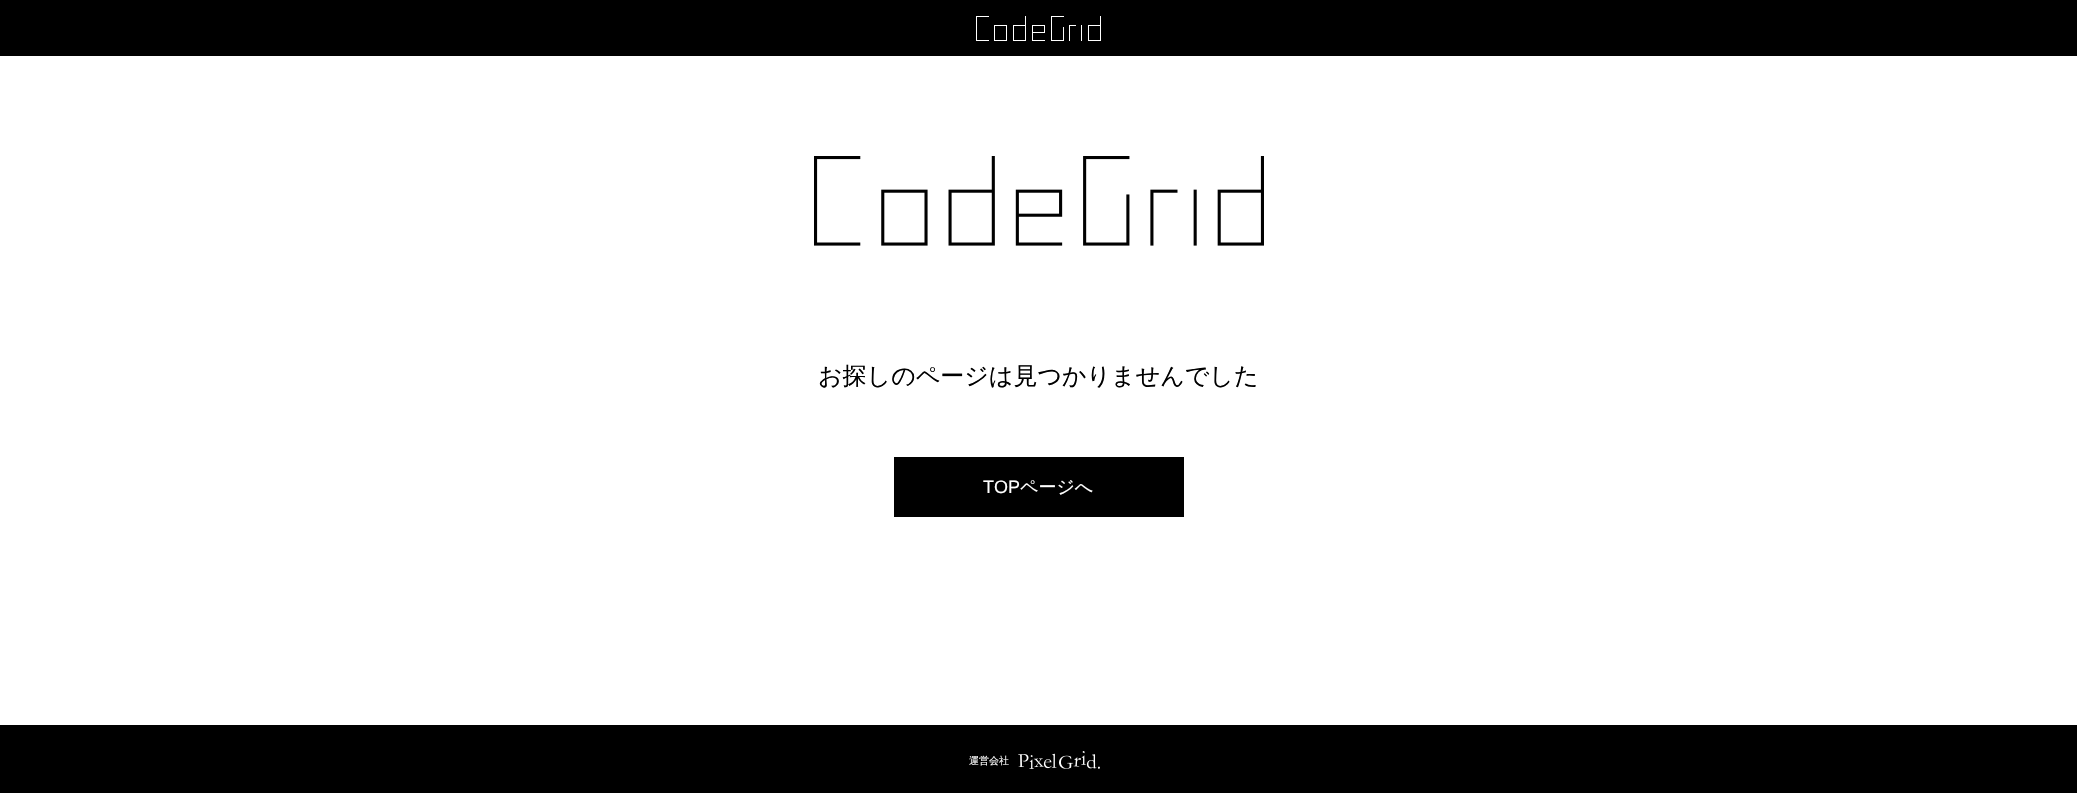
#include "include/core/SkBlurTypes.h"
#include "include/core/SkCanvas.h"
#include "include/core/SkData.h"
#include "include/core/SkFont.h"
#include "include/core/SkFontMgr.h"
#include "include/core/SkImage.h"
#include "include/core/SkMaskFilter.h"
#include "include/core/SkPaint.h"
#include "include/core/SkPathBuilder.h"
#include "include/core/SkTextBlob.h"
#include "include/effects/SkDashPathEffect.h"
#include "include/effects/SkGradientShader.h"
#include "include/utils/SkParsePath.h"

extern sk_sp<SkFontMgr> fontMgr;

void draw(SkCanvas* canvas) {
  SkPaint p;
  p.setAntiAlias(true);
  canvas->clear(SK_ColorWHITE);
  p.setColor(SK_ColorBLACK);
  canvas->drawRect(SkRect::MakeLTRB(0, 0, 2077, 56), p);
  canvas->drawImageRect(SkImages::DeferredFromEncodedData(SkData::MakeFromFileName("images/1.png")), SkRect::MakeLTRB(976, 16, 1101, 41), SkSamplingOptions());
  canvas->drawImageRect(SkImages::DeferredFromEncodedData(SkData::MakeFromFileName("images/2.png")), SkRect::MakeLTRB(814, 156, 1264, 246), SkSamplingOptions());
  canvas->drawRect(SkRect::MakeLTRB(894, 457, 1184, 517), p);
  canvas->drawRect(SkRect::MakeLTRB(0, 725, 2077, 793), p);
  canvas->drawImageRect(SkImages::DeferredFromEncodedData(SkData::MakeFromFileName("images/3.png")), SkRect::MakeLTRB(1018, 751, 1100, 769), SkSamplingOptions());
  SkFont font1(fontMgr->matchFamilyStyle("WenQuanYi Zen Hei", SkFontStyle(500, SkFontStyle::kNormal_Width, SkFontStyle::kUpright_Slant)), 24);
  font1.setSubpixel(true);
  canvas->drawString("お探しのページは見つかりませんでした", 818, 384, font1, p);
  SkFont font2(fontMgr->matchFamilyStyle("Liberation Sans", SkFontStyle::Normal()), 18);
  font2.setSubpixel(true);
  p.setColor(SK_ColorWHITE);
  canvas->drawString("TOP", 983, 493, font2, p);
  SkFont font3(fontMgr->matchFamilyStyle("WenQuanYi Zen Hei", SkFontStyle(500, SkFontStyle::kNormal_Width, SkFontStyle::kUpright_Slant)), 18);
  font3.setSubpixel(true);
  canvas->drawString("ページへ", 1020, 493, font3, p);
  SkFont font4(fontMgr->matchFamilyStyle("WenQuanYi Zen Hei", SkFontStyle(500, SkFontStyle::kNormal_Width, SkFontStyle::kUpright_Slant)), 10);
  font4.setSubpixel(true);
  canvas->drawString("運営会社", 969, 764, font4, p);
}
